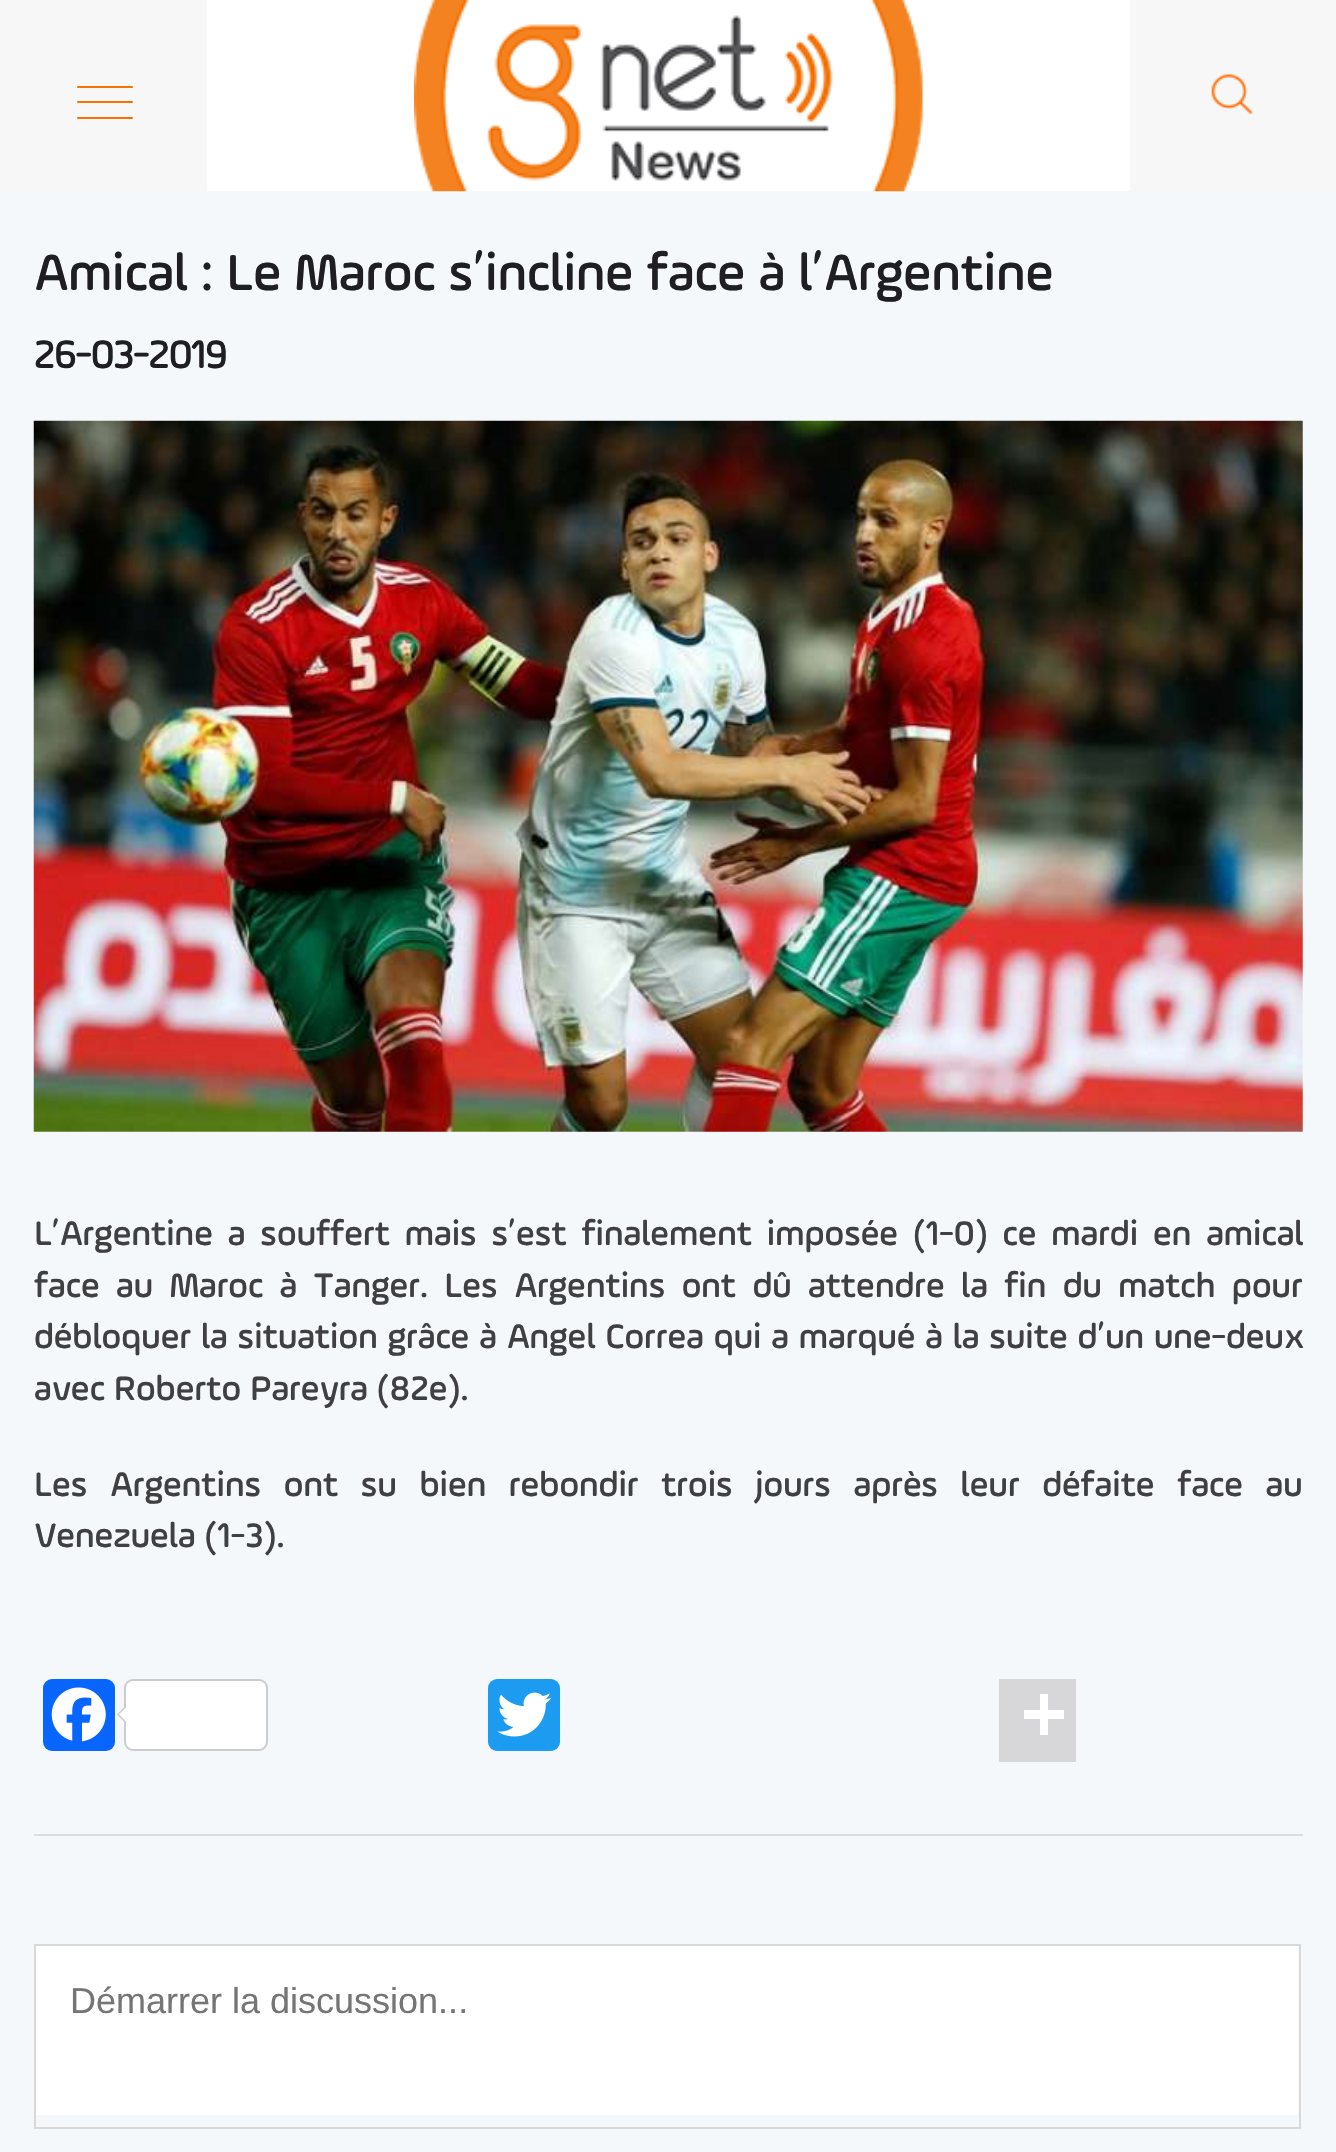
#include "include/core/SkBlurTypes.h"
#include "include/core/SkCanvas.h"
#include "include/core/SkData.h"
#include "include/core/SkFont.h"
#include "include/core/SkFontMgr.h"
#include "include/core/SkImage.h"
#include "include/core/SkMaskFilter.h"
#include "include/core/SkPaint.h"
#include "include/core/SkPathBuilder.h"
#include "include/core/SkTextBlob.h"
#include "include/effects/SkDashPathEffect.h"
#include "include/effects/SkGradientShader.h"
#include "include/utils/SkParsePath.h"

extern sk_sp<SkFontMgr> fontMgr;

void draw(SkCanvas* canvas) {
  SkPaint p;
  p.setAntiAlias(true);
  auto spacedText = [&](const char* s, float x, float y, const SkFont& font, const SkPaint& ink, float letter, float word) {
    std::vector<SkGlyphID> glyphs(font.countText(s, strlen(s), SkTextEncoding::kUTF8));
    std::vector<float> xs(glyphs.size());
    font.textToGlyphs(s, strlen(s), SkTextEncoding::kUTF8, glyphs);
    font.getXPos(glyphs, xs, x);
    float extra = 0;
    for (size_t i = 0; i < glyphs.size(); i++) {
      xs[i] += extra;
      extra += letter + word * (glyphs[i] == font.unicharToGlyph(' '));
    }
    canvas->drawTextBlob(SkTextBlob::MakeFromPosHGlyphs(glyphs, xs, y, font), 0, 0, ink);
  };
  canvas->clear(SK_ColorWHITE);
  p.setColor(SkColorSetRGB(247, 247, 247));
  canvas->drawRect(SkRect::MakeLTRB(0, 0, 207, 191), p);
  p.setColor(SkColorSetRGB(245, 115, 3));
  canvas->drawRoundRect(SkRect::MakeLTRB(77, 86, 133, 88), 1, 1, p);
  canvas->drawRoundRect(SkRect::MakeLTRB(77, 101, 133, 103), 1, 1, p);
  canvas->drawRoundRect(SkRect::MakeLTRB(77, 117, 133, 119), 1, 1, p);
  p.setColor(SkColorSetRGB(244, 248, 251));
  canvas->drawRect(SkRect::MakeLTRB(0, 191, 1336, 2152), p);
  canvas->drawImageRect(SkImages::DeferredFromEncodedData(SkData::MakeFromFileName("images/1.png")), SkRect::MakeLTRB(414, 0, 923, 192), SkSamplingOptions());
  p.setColor(SkColorSetRGB(247, 247, 247));
  canvas->drawRect(SkRect::MakeLTRB(1130, 0, 1336, 191), p);
  canvas->drawImageRect(SkImages::DeferredFromEncodedData(SkData::MakeFromFileName("images/2.png")), SkRect::MakeLTRB(1211, 74, 1253, 114), SkSamplingOptions());
  canvas->drawImageRect(SkImages::DeferredFromEncodedData(SkData::MakeFromFileName("images/3.png")), SkRect::MakeLTRB(33, 420, 1303, 1132), SkSamplingOptions());
  p.setColor(SkColorSetRGB(8, 102, 255));
  canvas->drawRoundRect(SkRect::MakeLTRB(43, 1679, 115, 1751), 9, 9, p);
  canvas->drawImageRect(SkImages::DeferredFromEncodedData(SkData::MakeFromFileName("images/4.png")), SkRect::MakeLTRB(51, 1687, 106, 1742), SkSamplingOptions());
  p.setColor(SK_ColorWHITE);
  canvas->drawRoundRect(SkRect::MakeLTRB(125, 1680, 267, 1750), 8, 8, p);
  p.setStyle(SkPaint::kStroke_Style);
  p.setStrokeWidth(2);
  p.setColor(SkColorSetRGB(204, 204, 204));
  canvas->drawRoundRect(SkRect::MakeLTRB(125, 1680, 267, 1750), 8, 8, p);
  p.setStyle(SkPaint::kFill_Style);
  canvas->drawPath(SkPathBuilder().moveTo(126, 1705.5f).lineTo(126, 1723.5f).lineTo(117, 1714.5f).close().detach(), p);
  p.setColor(SK_ColorWHITE);
  canvas->drawPath(SkPathBuilder().moveTo(128, 1705.5f).lineTo(128, 1723.5f).lineTo(119, 1714.5f).close().detach(), p);
  p.setColor(SkColorSetRGB(29, 155, 240));
  canvas->drawRoundRect(SkRect::MakeLTRB(488, 1679, 560, 1751), 9, 9, p);
  canvas->drawImageRect(SkImages::DeferredFromEncodedData(SkData::MakeFromFileName("images/5.png")), SkRect::MakeLTRB(497, 1692, 552, 1737), SkSamplingOptions());
  p.setColor(SkColorSetRGB(215, 215, 218));
  canvas->drawRect(SkRect::MakeLTRB(999, 1679, 1076, 1762), p);
  p.setColor(SK_ColorWHITE);
  canvas->drawRect(SkRect::MakeLTRB(1040, 1694, 1048, 1735), p);
  canvas->drawRect(SkRect::MakeLTRB(1024, 1710, 1064, 1719), p);
  p.setColor(SkColorSetRGB(221, 221, 221));
  canvas->drawRect(SkRect::MakeLTRB(34, 1834, 1303, 1836), p);
  p.setStyle(SkPaint::kStroke_Style);
  p.setColor(SkColorSetRGB(217, 217, 217));
  canvas->drawRect(SkRect::MakeLTRB(35, 1945, 1300, 2128), p);
  p.setStyle(SkPaint::kFill_Style);
  p.setColor(SK_ColorWHITE);
  canvas->drawRect(SkRect::MakeLTRB(36, 1946, 1298, 2115), p);
  SkFont font1(fontMgr->matchFamilyStyle("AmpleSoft", SkFontStyle::Normal()), 54);
  font1.setSubpixel(true);
  p.setColor(SkColorSetRGB(30, 30, 35));
  canvas->drawString("Amical : Le Maroc s’incline face à l’Argentine", 34, 290, font1, p);
  SkFont font2(fontMgr->matchFamilyStyle("AmpleSoft", SkFontStyle::Bold()), 40.5f);
  font2.setSubpixel(true);
  canvas->drawString("26-03-2019", 34, 368, font2, p);
  SkFont font3(fontMgr->matchFamilyStyle("AmpleSoft", SkFontStyle::Normal()), 36);
  font3.setSubpixel(true);
  p.setColor(SkColorSetRGB(64, 64, 66));
  spacedText("L’Argentine a souffert mais s’est finalement imposée (1-0) ce mardi en amical", 34, 1245, font3, p, 0, 6);
  spacedText("face au Maroc à Tanger. Les Argentins ont dû attendre la fin du match pour", 34, 1297, font3, p, 0, 7.5f);
  spacedText("débloquer la situation grâce à Angel Correa qui a marqué à la suite d’un une-deux", 34, 1348, font3, p, 0, 1);
  canvas->drawString("avec Roberto Pareyra (82e).", 34, 1400, font3, p);
  spacedText("Les Argentins ont su bien rebondir trois jours après leur défaite face au", 34, 1496, font3, p, 0, 13.75f);
  canvas->drawString("Venezuela (1-3).", 34, 1547, font3, p);
  SkFont font4(fontMgr->matchFamilyStyle("Liberation Sans", SkFontStyle::Normal()), 36);
  font4.setSubpixel(true);
  p.setColor(SkColorSetRGB(117, 117, 117));
  canvas->drawString("Démarrer la discussion...", 70, 2013, font4, p);
}
